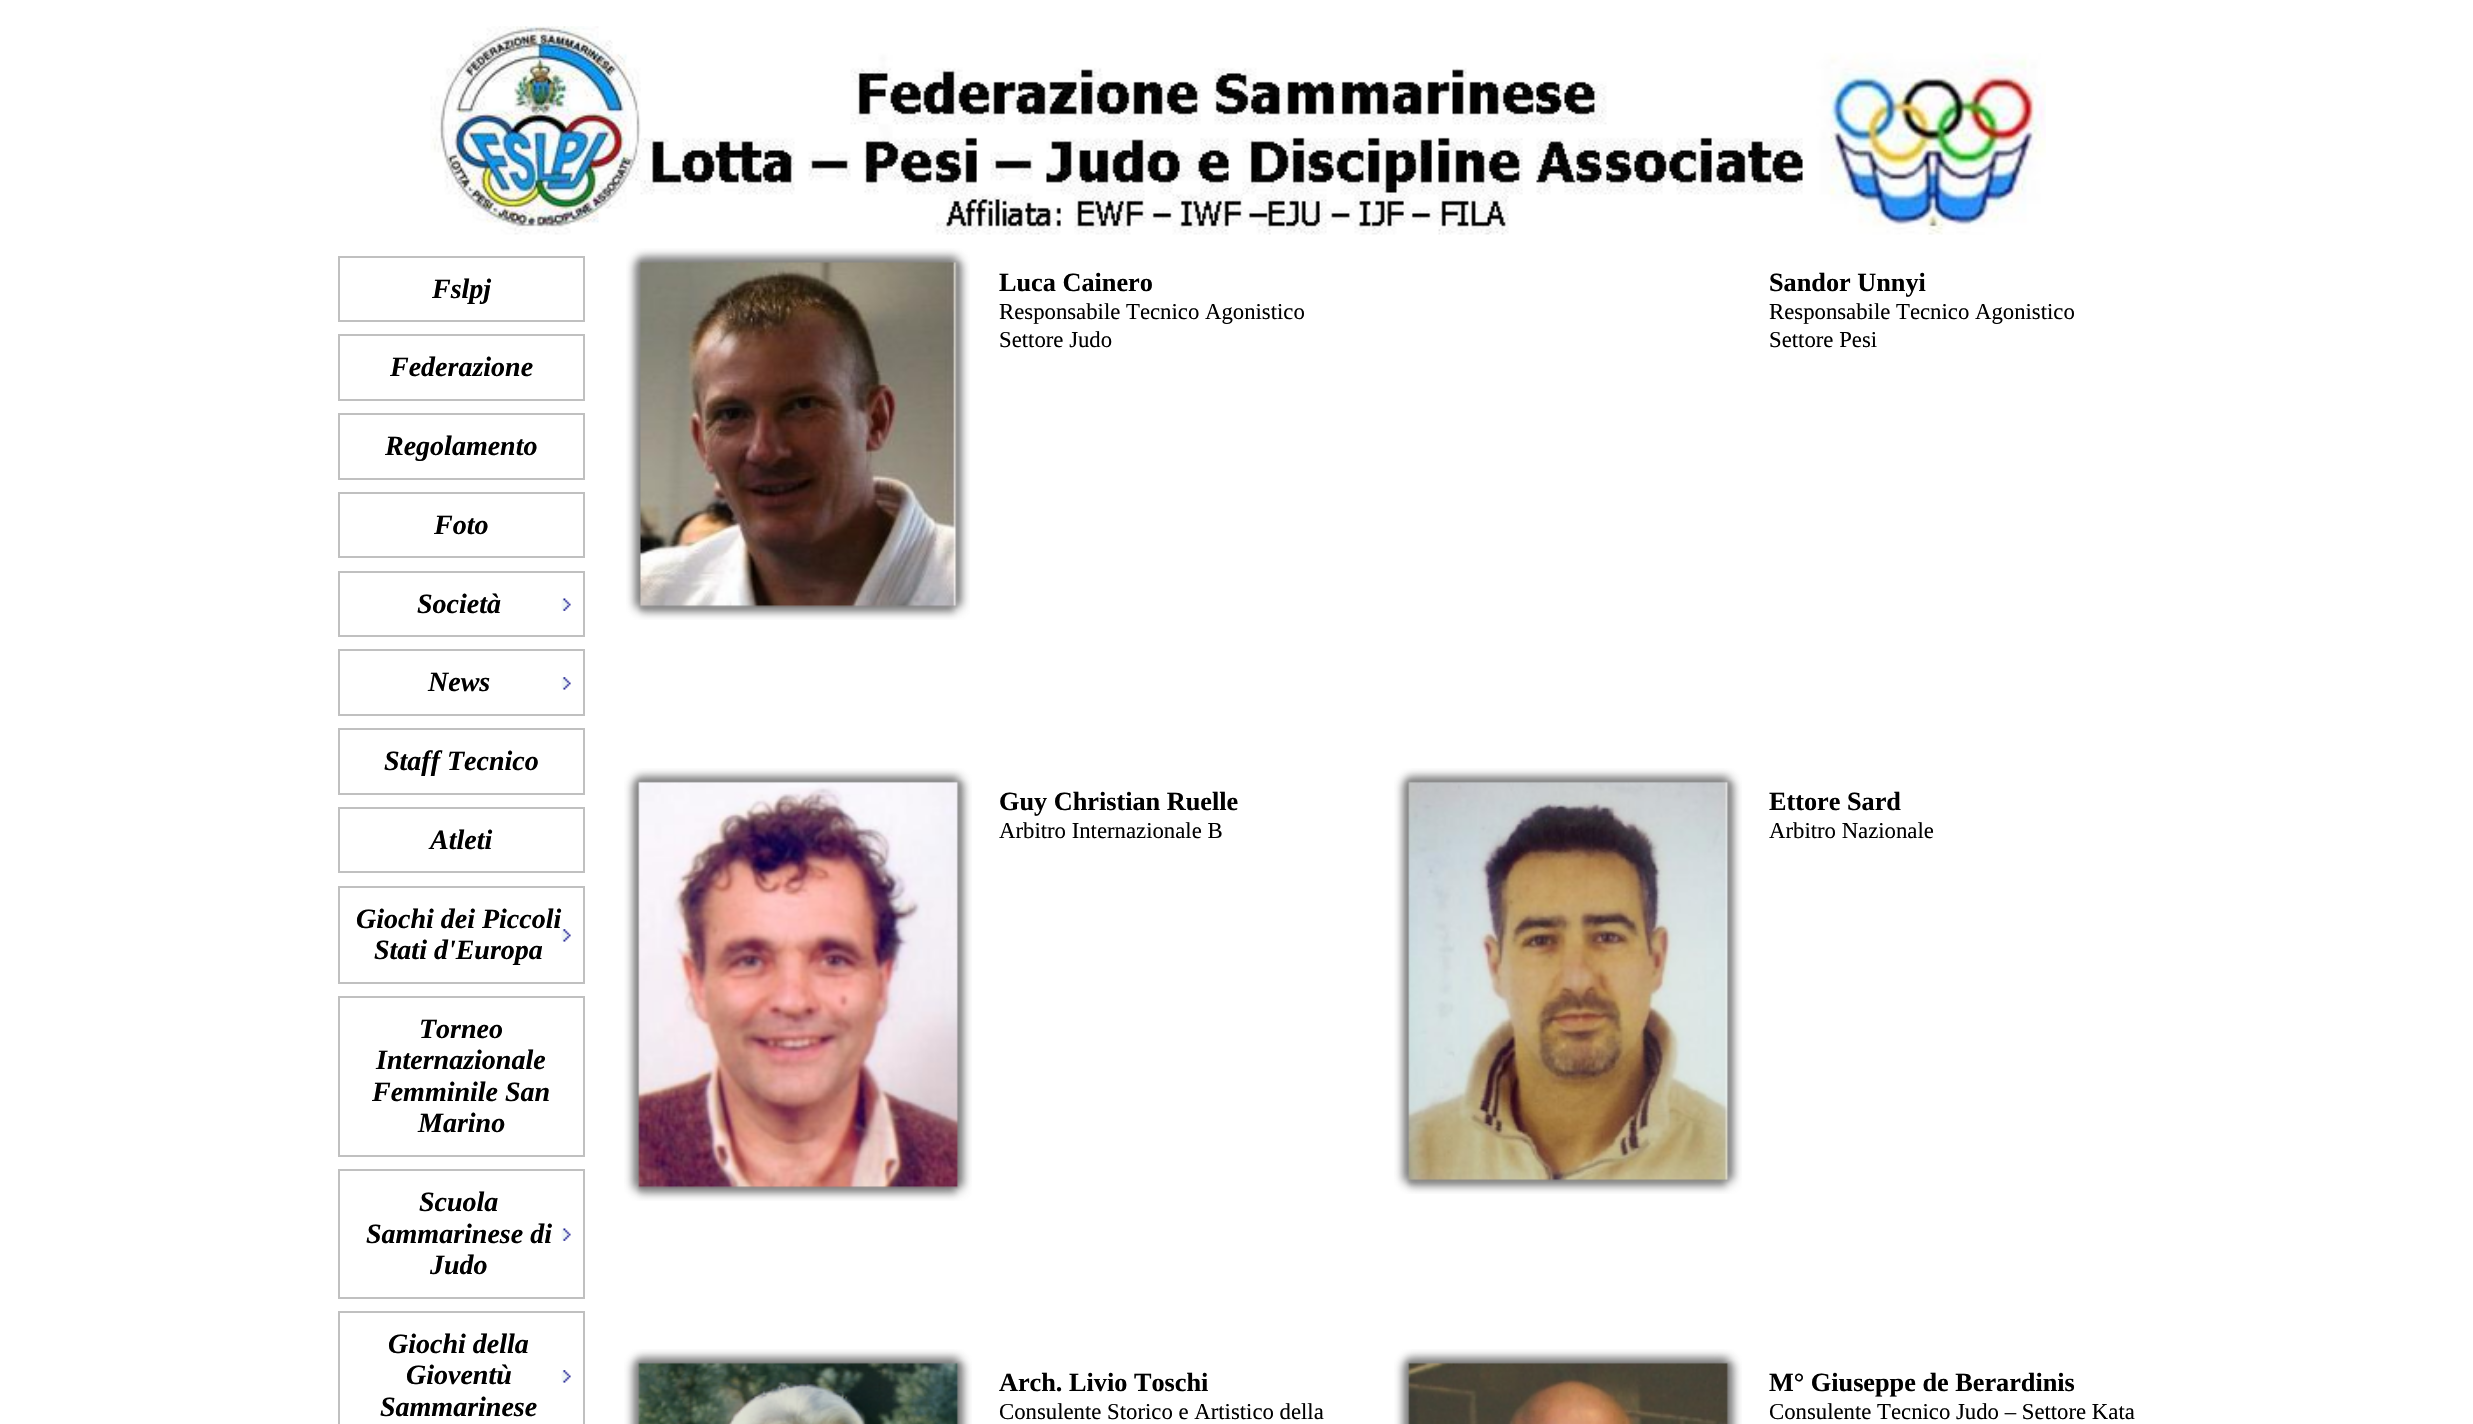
#include "include/core/SkBlurTypes.h"
#include "include/core/SkCanvas.h"
#include "include/core/SkData.h"
#include "include/core/SkFont.h"
#include "include/core/SkFontMgr.h"
#include "include/core/SkImage.h"
#include "include/core/SkMaskFilter.h"
#include "include/core/SkPaint.h"
#include "include/core/SkPathBuilder.h"
#include "include/core/SkTextBlob.h"
#include "include/effects/SkDashPathEffect.h"
#include "include/effects/SkGradientShader.h"
#include "include/utils/SkParsePath.h"

extern sk_sp<SkFontMgr> fontMgr;

void draw(SkCanvas* canvas) {
  SkPaint p;
  p.setAntiAlias(true);
  canvas->clear(SK_ColorWHITE);
  canvas->drawImageRect(SkImages::DeferredFromEncodedData(SkData::MakeFromFileName("images/1.png")), SkRect::MakeLTRB(430, 26, 2046, 235), SkSamplingOptions());
  p.setStyle(SkPaint::kStroke_Style);
  p.setStrokeWidth(2);
  p.setColor(SkColorSetRGB(192, 192, 192));
  canvas->drawRect(SkRect::MakeLTRB(339, 257, 584, 321), p);
  canvas->drawRect(SkRect::MakeLTRB(339, 335, 584, 400), p);
  canvas->drawRect(SkRect::MakeLTRB(339, 414, 584, 479), p);
  canvas->drawRect(SkRect::MakeLTRB(339, 493, 584, 557), p);
  canvas->drawRect(SkRect::MakeLTRB(339, 572, 584, 636), p);
  canvas->drawImageRect(SkImages::DeferredFromEncodedData(SkData::MakeFromFileName("images/2.png")), SkRect::MakeLTRB(561, 598, 571, 611), SkSamplingOptions());
  canvas->drawRect(SkRect::MakeLTRB(339, 650, 584, 715), p);
  canvas->drawImageRect(SkImages::DeferredFromEncodedData(SkData::MakeFromFileName("images/3.png")), SkRect::MakeLTRB(561, 677, 571, 690), SkSamplingOptions());
  canvas->drawRect(SkRect::MakeLTRB(339, 729, 584, 794), p);
  canvas->drawRect(SkRect::MakeLTRB(339, 808, 584, 872), p);
  canvas->drawRect(SkRect::MakeLTRB(339, 887, 584, 983), p);
  canvas->drawImageRect(SkImages::DeferredFromEncodedData(SkData::MakeFromFileName("images/3.png")), SkRect::MakeLTRB(561, 929, 571, 942), SkSamplingOptions());
  canvas->drawRect(SkRect::MakeLTRB(339, 997, 584, 1156), p);
  canvas->drawRect(SkRect::MakeLTRB(339, 1170, 584, 1298), p);
  canvas->drawImageRect(SkImages::DeferredFromEncodedData(SkData::MakeFromFileName("images/2.png")), SkRect::MakeLTRB(561, 1228, 571, 1241), SkSamplingOptions());
  canvas->drawRect(SkRect::MakeLTRB(339, 1312, 584, 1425), p);
  canvas->drawImageRect(SkImages::DeferredFromEncodedData(SkData::MakeFromFileName("images/3.png")), SkRect::MakeLTRB(561, 1370, 571, 1383), SkSamplingOptions());
  canvas->drawImageRect(SkImages::DeferredFromEncodedData(SkData::MakeFromFileName("images/4.png")), SkRect::MakeLTRB(626, 248, 970, 620), SkSamplingOptions());
  canvas->drawImageRect(SkImages::DeferredFromEncodedData(SkData::MakeFromFileName("images/5.png")), SkRect::MakeLTRB(624, 768, 972, 1201), SkSamplingOptions());
  canvas->drawImageRect(SkImages::DeferredFromEncodedData(SkData::MakeFromFileName("images/6.png")), SkRect::MakeLTRB(1394, 768, 1742, 1194), SkSamplingOptions());
  canvas->drawImageRect(SkImages::DeferredFromEncodedData(SkData::MakeFromFileName("images/7.png")), SkRect::MakeLTRB(624, 1349, 972, 1424), SkSamplingOptions());
  canvas->drawImageRect(SkImages::DeferredFromEncodedData(SkData::MakeFromFileName("images/8.png")), SkRect::MakeLTRB(1394, 1349, 1742, 1424), SkSamplingOptions());
  SkFont font1(fontMgr->matchFamilyStyle("Liberation Serif", SkFontStyle::BoldItalic()), 28);
  font1.setSubpixel(true);
  p.setStyle(SkPaint::kFill_Style);
  p.setColor(SK_ColorBLACK);
  canvas->drawString("Fslpj", 432, 298, font1, p);
  canvas->drawString("Federazione", 390, 376, font1, p);
  canvas->drawString("Regolamento", 385, 455, font1, p);
  canvas->drawString("Foto", 434, 534, font1, p);
  canvas->drawString("Società", 417, 613, font1, p);
  canvas->drawString("News", 428, 691, font1, p);
  canvas->drawString("Staff Tecnico", 384, 770, font1, p);
  canvas->drawString("Atleti", 430, 849, font1, p);
  canvas->drawString("Giochi dei Piccoli", 356, 928, font1, p);
  canvas->drawString("Stati d'Europa", 374, 959, font1, p);
  canvas->drawString("Torneo", 419, 1038, font1, p);
  canvas->drawString("Internazionale", 376, 1069, font1, p);
  canvas->drawString("Femminile San", 372, 1101, font1, p);
  canvas->drawString("Marino", 418, 1132, font1, p);
  canvas->drawString("Scuola", 419, 1211, font1, p);
  canvas->drawString("Sammarinese di", 366, 1243, font1, p);
  canvas->drawString("Judo", 430, 1274, font1, p);
  canvas->drawString("Giochi della", 388, 1353, font1, p);
  canvas->drawString("Gioventù", 406, 1384, font1, p);
  canvas->drawString("Sammarinese", 380, 1416, font1, p);
  SkFont font2(fontMgr->matchFamilyStyle("Liberation Serif", SkFontStyle::Bold()), 26.25f);
  font2.setSubpixel(true);
  canvas->drawString("Luca Cainero", 999, 291, font2, p);
  SkFont font3(fontMgr->matchFamilyStyle("Liberation Serif", SkFontStyle::Normal()), 22.75f);
  font3.setSubpixel(true);
  canvas->drawString("Responsabile Tecnico Agonistico", 999, 319, font3, p);
  canvas->drawString("Settore Judo", 999, 347, font3, p);
  canvas->drawString("Sandor Unnyi", 1769, 291, font2, p);
  canvas->drawString("Responsabile Tecnico Agonistico", 1769, 319, font3, p);
  canvas->drawString("Settore Pesi", 1769, 347, font3, p);
  canvas->drawString("Guy Christian Ruelle", 999, 810, font2, p);
  canvas->drawString("Arbitro Internazionale B", 999, 838, font3, p);
  canvas->drawString("Ettore Sard", 1769, 810, font2, p);
  canvas->drawString("Arbitro Nazionale", 1769, 838, font3, p);
  canvas->drawString("Arch. Livio Toschi", 999, 1391, font2, p);
  canvas->drawString("Consulente Storico e Artistico della", 999, 1419, font3, p);
  canvas->drawString("M° Giuseppe de Berardinis", 1769, 1391, font2, p);
  canvas->drawString("Consulente Tecnico Judo – Settore Kata", 1769, 1419, font3, p);
}
